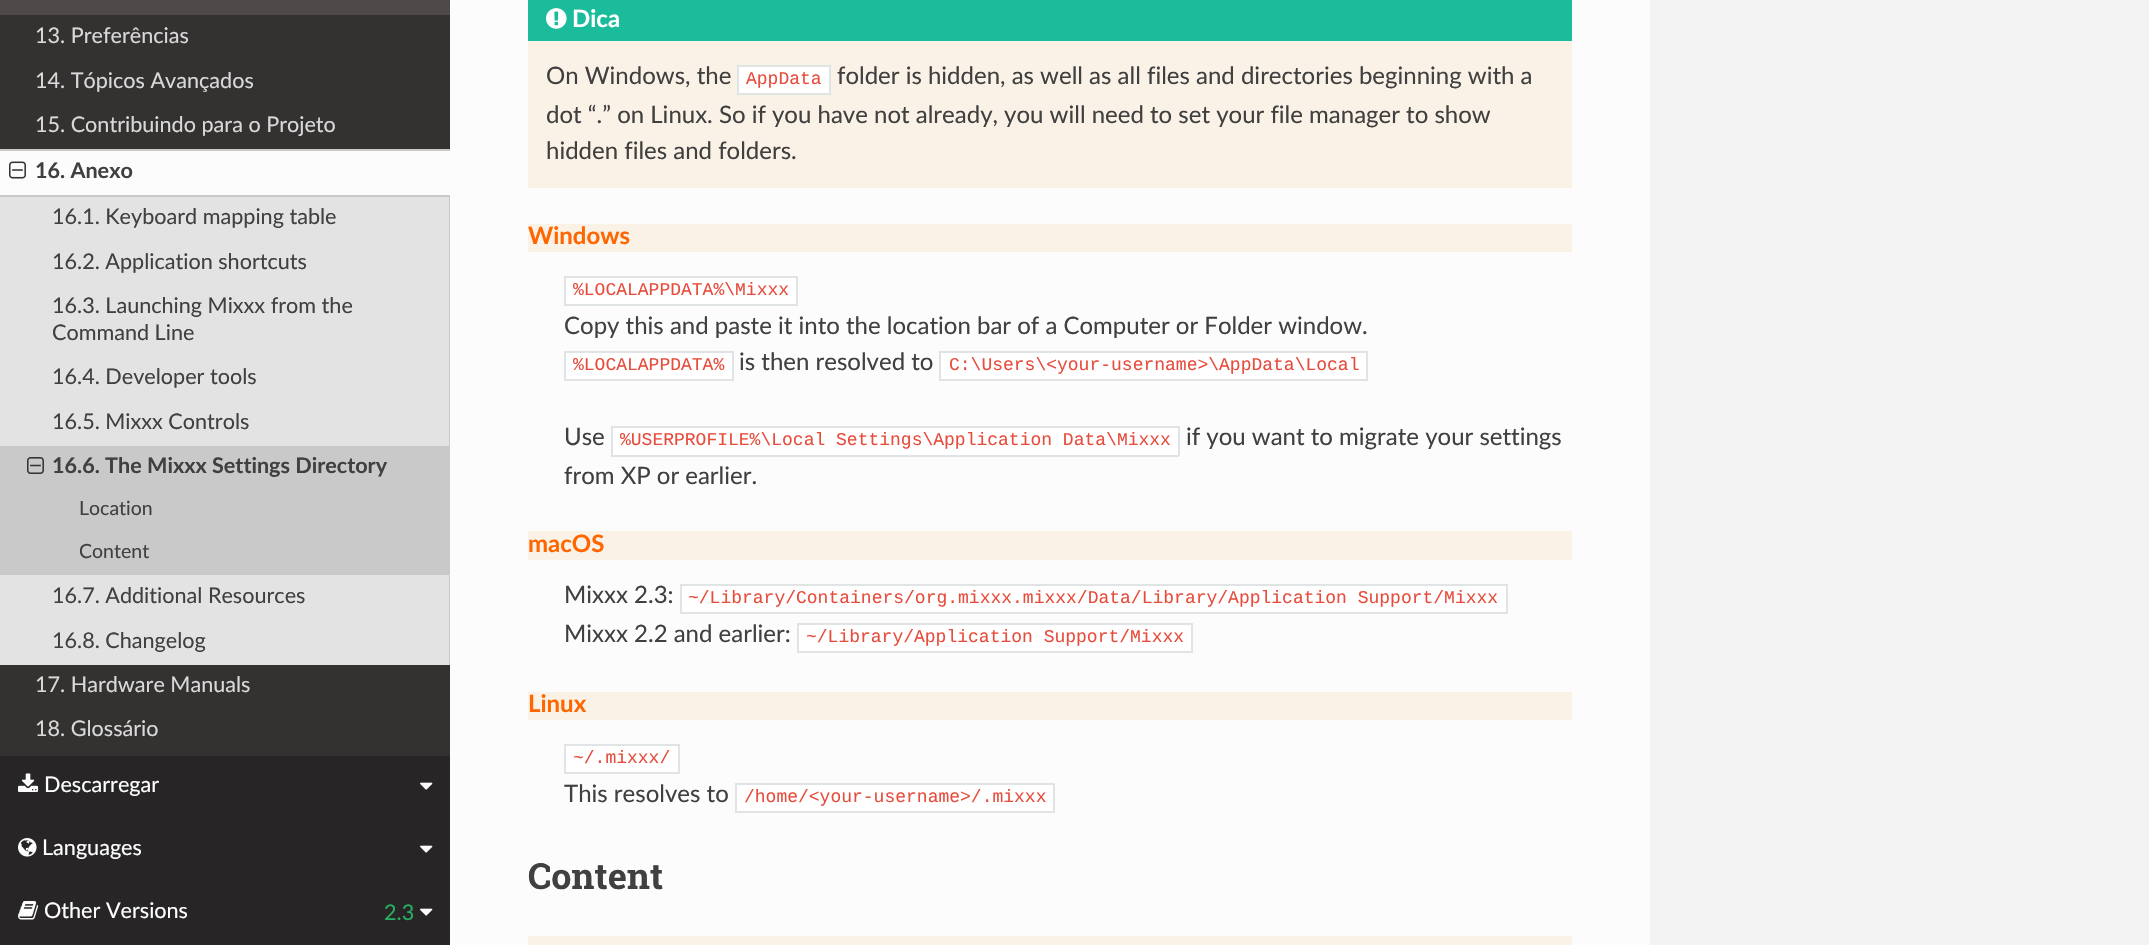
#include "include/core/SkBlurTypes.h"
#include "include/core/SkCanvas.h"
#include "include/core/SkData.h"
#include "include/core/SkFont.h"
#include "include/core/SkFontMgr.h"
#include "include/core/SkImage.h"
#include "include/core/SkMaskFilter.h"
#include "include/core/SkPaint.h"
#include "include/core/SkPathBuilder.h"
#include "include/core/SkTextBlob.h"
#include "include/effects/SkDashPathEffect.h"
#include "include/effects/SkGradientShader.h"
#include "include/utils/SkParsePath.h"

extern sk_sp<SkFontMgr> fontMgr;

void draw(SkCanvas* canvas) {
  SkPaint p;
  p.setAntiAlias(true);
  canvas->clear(SkColorSetRGB(243, 243, 243));
  p.setColor(SkColorSetRGB(52, 49, 49));
  canvas->drawRect(SkRect::MakeLTRB(0, 15, 450, 756), p);
  p.setColor(SkColorSetRGB(78, 74, 74));
  canvas->drawRect(SkRect::MakeLTRB(0, 0, 450, 15), p);
  p.setColor(SkColorSetRGB(227, 227, 227));
  canvas->drawRect(SkRect::MakeLTRB(0, 197, 449, 665), p);
  p.setColor(SkColorSetRGB(252, 252, 252));
  canvas->drawRect(SkRect::MakeLTRB(0, 151, 450, 195), p);
  p.setColor(SkColorSetRGB(201, 201, 201));
  canvas->drawRect(SkRect::MakeLTRB(0, 149, 450, 151), p);
  canvas->drawRect(SkRect::MakeLTRB(0, 195, 450, 197), p);
  canvas->drawImageRect(SkImages::DeferredFromEncodedData(SkData::MakeFromFileName("images/1.png")), SkRect::MakeLTRB(9, 161, 26, 179), SkSamplingOptions());
  canvas->drawRect(SkRect::MakeLTRB(449, 197, 450, 446), p);
  canvas->drawRect(SkRect::MakeLTRB(0, 446, 450, 575), p);
  canvas->drawImageRect(SkImages::DeferredFromEncodedData(SkData::MakeFromFileName("images/2.png")), SkRect::MakeLTRB(27, 457, 44, 474), SkSamplingOptions());
  canvas->drawRect(SkRect::MakeLTRB(449, 575, 450, 665), p);
  p.setColor(SkColorSetRGB(252, 252, 252));
  canvas->drawRect(SkRect::MakeLTRB(450, 0, 1650, 945), p);
  p.setColor(SkColorSetRGB(250, 242, 231));
  canvas->drawRect(SkRect::MakeLTRB(528, 41, 1572, 188), p);
  p.setColor(SkColorSetRGB(26, 188, 156));
  canvas->drawRect(SkRect::MakeLTRB(528, 0, 1572, 41), p);
  canvas->drawImageRect(SkImages::DeferredFromEncodedData(SkData::MakeFromFileName("images/3.png")), SkRect::MakeLTRB(546, 8, 567, 29), SkSamplingOptions());
  p.setColor(SK_ColorWHITE);
  canvas->drawRect(SkRect::MakeLTRB(738, 66, 830, 94), p);
  p.setStyle(SkPaint::kStroke_Style);
  p.setStrokeWidth(2);
  p.setColor(SkColorSetRGB(225, 228, 229));
  canvas->drawRect(SkRect::MakeLTRB(738, 66, 830, 94), p);
  p.setStyle(SkPaint::kFill_Style);
  p.setColor(SkColorSetRGB(250, 242, 231));
  canvas->drawRect(SkRect::MakeLTRB(528, 224, 1572, 252), p);
  p.setColor(SK_ColorWHITE);
  canvas->drawRect(SkRect::MakeLTRB(565, 277, 797, 305), p);
  p.setStyle(SkPaint::kStroke_Style);
  p.setColor(SkColorSetRGB(225, 228, 229));
  canvas->drawRect(SkRect::MakeLTRB(565, 277, 797, 305), p);
  p.setStyle(SkPaint::kFill_Style);
  p.setColor(SK_ColorWHITE);
  canvas->drawRect(SkRect::MakeLTRB(565, 352, 733, 380), p);
  p.setStyle(SkPaint::kStroke_Style);
  p.setColor(SkColorSetRGB(225, 228, 229));
  canvas->drawRect(SkRect::MakeLTRB(565, 352, 733, 380), p);
  p.setStyle(SkPaint::kFill_Style);
  p.setColor(SK_ColorWHITE);
  canvas->drawRect(SkRect::MakeLTRB(940, 352, 1367, 380), p);
  p.setStyle(SkPaint::kStroke_Style);
  p.setColor(SkColorSetRGB(225, 228, 229));
  canvas->drawRect(SkRect::MakeLTRB(940, 352, 1367, 380), p);
  p.setStyle(SkPaint::kFill_Style);
  p.setColor(SK_ColorWHITE);
  canvas->drawRect(SkRect::MakeLTRB(613, 428, 1178, 455), p);
  p.setColor(SkColorSetRGB(225, 228, 229));
  canvas->drawRect(SkRect::MakeLTRB(611, 426, 1179, 428), p);
  canvas->drawRect(SkRect::MakeLTRB(611, 455, 1062, 457), p);
  canvas->drawRect(SkRect::MakeLTRB(611, 426, 613, 456), p);
  canvas->drawRect(SkRect::MakeLTRB(1178, 426, 1180, 456), p);
  canvas->drawRect(SkRect::MakeLTRB(1062, 455, 1179, 457), p);
  p.setColor(SkColorSetRGB(250, 242, 231));
  canvas->drawRect(SkRect::MakeLTRB(528, 531, 1572, 560), p);
  p.setColor(SK_ColorWHITE);
  canvas->drawRect(SkRect::MakeLTRB(682, 586, 1506, 612), p);
  p.setColor(SkColorSetRGB(225, 228, 229));
  canvas->drawRect(SkRect::MakeLTRB(680, 584, 1508, 586), p);
  canvas->drawRect(SkRect::MakeLTRB(680, 612, 1358, 614), p);
  canvas->drawRect(SkRect::MakeLTRB(680, 584, 682, 614), p);
  canvas->drawRect(SkRect::MakeLTRB(1506, 584, 1508, 614), p);
  canvas->drawRect(SkRect::MakeLTRB(1358, 612, 1508, 614), p);
  p.setColor(SK_ColorWHITE);
  canvas->drawRect(SkRect::MakeLTRB(799, 625, 1191, 651), p);
  p.setColor(SkColorSetRGB(225, 228, 229));
  canvas->drawRect(SkRect::MakeLTRB(797, 623, 1193, 625), p);
  canvas->drawRect(SkRect::MakeLTRB(797, 651, 1043, 653), p);
  canvas->drawRect(SkRect::MakeLTRB(797, 623, 799, 653), p);
  canvas->drawRect(SkRect::MakeLTRB(1191, 623, 1193, 653), p);
  canvas->drawRect(SkRect::MakeLTRB(1043, 651, 1193, 653), p);
  p.setColor(SkColorSetRGB(250, 242, 231));
  canvas->drawRect(SkRect::MakeLTRB(528, 692, 1572, 720), p);
  p.setColor(SK_ColorWHITE);
  canvas->drawRect(SkRect::MakeLTRB(565, 745, 679, 773), p);
  p.setStyle(SkPaint::kStroke_Style);
  p.setColor(SkColorSetRGB(225, 228, 229));
  canvas->drawRect(SkRect::MakeLTRB(565, 745, 679, 773), p);
  p.setStyle(SkPaint::kFill_Style);
  p.setColor(SK_ColorWHITE);
  canvas->drawRect(SkRect::MakeLTRB(736, 784, 1054, 812), p);
  p.setStyle(SkPaint::kStroke_Style);
  p.setColor(SkColorSetRGB(225, 228, 229));
  canvas->drawRect(SkRect::MakeLTRB(736, 784, 1054, 812), p);
  p.setStyle(SkPaint::kFill_Style);
  p.setColor(SkColorSetRGB(250, 242, 231));
  canvas->drawRect(SkRect::MakeLTRB(528, 936, 1572, 945), p);
  p.setColor(SkColorSetRGB(39, 37, 37));
  canvas->drawRect(SkRect::MakeLTRB(0, 756, 450, 945), p);
  canvas->drawImageRect(SkImages::DeferredFromEncodedData(SkData::MakeFromFileName("images/4.png")), SkRect::MakeLTRB(18, 773, 39, 792), SkSamplingOptions());
  canvas->drawImageRect(SkImages::DeferredFromEncodedData(SkData::MakeFromFileName("images/5.png")), SkRect::MakeLTRB(420, 782, 433, 790), SkSamplingOptions());
  canvas->drawImageRect(SkImages::DeferredFromEncodedData(SkData::MakeFromFileName("images/6.png")), SkRect::MakeLTRB(18, 838, 37, 857), SkSamplingOptions());
  canvas->drawImageRect(SkImages::DeferredFromEncodedData(SkData::MakeFromFileName("images/5.png")), SkRect::MakeLTRB(420, 845, 433, 853), SkSamplingOptions());
  canvas->drawImageRect(SkImages::DeferredFromEncodedData(SkData::MakeFromFileName("images/7.png")), SkRect::MakeLTRB(18, 901, 38, 920), SkSamplingOptions());
  canvas->drawImageRect(SkImages::DeferredFromEncodedData(SkData::MakeFromFileName("images/5.png")), SkRect::MakeLTRB(420, 908, 433, 916), SkSamplingOptions());
  SkFont font1(fontMgr->matchFamilyStyle("Lato", SkFontStyle::Normal()), 21.6f);
  font1.setSubpixel(true);
  p.setColor(SkColorSetRGB(217, 217, 217));
  canvas->drawString("13. Preferências", 35, 43, font1, p);
  canvas->drawString("14. Tópicos Avançados", 35, 88, font1, p);
  canvas->drawString("15. Contribuindo para o Projeto", 35, 132, font1, p);
  SkFont font2(fontMgr->matchFamilyStyle("Lato", SkFontStyle::Bold()), 21.6f);
  font2.setSubpixel(true);
  p.setColor(SkColorSetRGB(64, 64, 64));
  canvas->drawString("16. Anexo", 35, 178, font2, p);
  canvas->drawString("16.1. Keyboard mapping table", 52, 224, font1, p);
  canvas->drawString("16.2. Application shortcuts", 52, 269, font1, p);
  canvas->drawString("16.3. Launching Mixxx from the", 52, 313, font1, p);
  canvas->drawString("Command Line", 52, 340, font1, p);
  canvas->drawString("16.4. Developer tools", 52, 384, font1, p);
  canvas->drawString("16.5. Mixxx Controls", 52, 429, font1, p);
  canvas->drawString("16.6. The Mixxx Settings Directory", 52, 473, font2, p);
  SkFont font3(fontMgr->matchFamilyStyle("Lato", SkFontStyle::Normal()), 19.5f);
  font3.setSubpixel(true);
  canvas->drawString("Location", 79, 515, font3, p);
  canvas->drawString("Content", 79, 558, font3, p);
  canvas->drawString("16.7. Additional Resources", 52, 603, font1, p);
  canvas->drawString("16.8. Changelog", 52, 648, font1, p);
  p.setColor(SkColorSetRGB(217, 217, 217));
  canvas->drawString("17. Hardware Manuals", 35, 692, font1, p);
  canvas->drawString("18. Glossário", 35, 736, font1, p);
  SkFont font4(fontMgr->matchFamilyStyle("Lato", SkFontStyle::Bold()), 24);
  font4.setSubpixel(true);
  p.setColor(SK_ColorWHITE);
  canvas->drawString("Dica", 572, 27, font4, p);
  SkFont font5(fontMgr->matchFamilyStyle("Lato", SkFontStyle::Normal()), 24);
  font5.setSubpixel(true);
  p.setColor(SkColorSetRGB(64, 64, 64));
  canvas->drawString("On Windows, the", 546, 84, font5, p);
  SkFont font6(fontMgr->matchFamilyStyle("Liberation Mono", SkFontStyle::Normal()), 18);
  font6.setSubpixel(true);
  p.setColor(SkColorSetRGB(231, 76, 60));
  canvas->drawString("AppData", 746, 84, font6, p);
  p.setColor(SkColorSetRGB(64, 64, 64));
  canvas->drawString("folder is hidden, as well as all files and directories beginning with a", 837, 84, font5, p);
  canvas->drawString("dot “.” on Linux. So if you have not already, you will need to set your file manager to show", 546, 123, font5, p);
  canvas->drawString("hidden files and folders.", 546, 159, font5, p);
  p.setColor(SkColorSetRGB(255, 102, 0));
  canvas->drawString("Windows", 528, 244, font4, p);
  p.setColor(SkColorSetRGB(231, 76, 60));
  canvas->drawString("%LOCALAPPDATA%\\Mixxx", 573, 295, font6, p);
  p.setColor(SkColorSetRGB(64, 64, 64));
  canvas->drawString("Copy this and paste it into the location bar of a Computer or Folder window.", 564, 334, font5, p);
  p.setColor(SkColorSetRGB(231, 76, 60));
  canvas->drawString("%LOCALAPPDATA%", 573, 370, font6, p);
  p.setColor(SkColorSetRGB(64, 64, 64));
  canvas->drawString("is then resolved to", 739, 370, font5, p);
  p.setColor(SkColorSetRGB(231, 76, 60));
  canvas->drawString("C:\\Users\\<your-username>\\AppData\\Local", 949, 370, font6, p);
  p.setColor(SkColorSetRGB(64, 64, 64));
  canvas->drawString("Use", 564, 445, font5, p);
  p.setColor(SkColorSetRGB(231, 76, 60));
  canvas->drawString("%USERPROFILE%\\Local Settings\\Application Data\\Mixxx", 620, 445, font6, p);
  p.setColor(SkColorSetRGB(64, 64, 64));
  canvas->drawString("if you want to migrate your settings", 1186, 445, font5, p);
  canvas->drawString("from XP or earlier.", 564, 484, font5, p);
  p.setColor(SkColorSetRGB(255, 102, 0));
  canvas->drawString("macOS", 528, 552, font4, p);
  p.setColor(SkColorSetRGB(64, 64, 64));
  canvas->drawString("Mixxx 2.3:", 564, 603, font5, p);
  p.setColor(SkColorSetRGB(231, 76, 60));
  canvas->drawString("~/Library/Containers/org.mixxx.mixxx/Data/Library/Application Support/Mixxx", 688, 603, font6, p);
  p.setColor(SkColorSetRGB(64, 64, 64));
  canvas->drawString("Mixxx 2.2 and earlier:", 564, 642, font5, p);
  p.setColor(SkColorSetRGB(231, 76, 60));
  canvas->drawString("~/Library/Application Support/Mixxx", 806, 642, font6, p);
  p.setColor(SkColorSetRGB(255, 102, 0));
  canvas->drawString("Linux", 528, 712, font4, p);
  p.setColor(SkColorSetRGB(231, 76, 60));
  canvas->drawString("~/.mixxx/", 573, 763, font6, p);
  p.setColor(SkColorSetRGB(64, 64, 64));
  canvas->drawString("This resolves to", 564, 802, font5, p);
  p.setColor(SkColorSetRGB(231, 76, 60));
  canvas->drawString("/home/<your-username>/.mixxx", 744, 802, font6, p);
  SkFont font7(fontMgr->matchFamilyStyle("Roboto Slab", SkFontStyle::Bold()), 36);
  font7.setSubpixel(true);
  p.setColor(SkColorSetRGB(64, 64, 64));
  canvas->drawString("Content", 528, 889, font7, p);
  p.setColor(SK_ColorWHITE);
  canvas->drawString("Descarregar", 44, 792, font1, p);
  canvas->drawString("Languages", 42, 855, font1, p);
  canvas->drawString("Other Versions", 44, 918, font1, p);
  p.setColor(SkColorSetRGB(39, 174, 96));
  canvas->drawString("2.3", 384, 920, font1, p);
}
